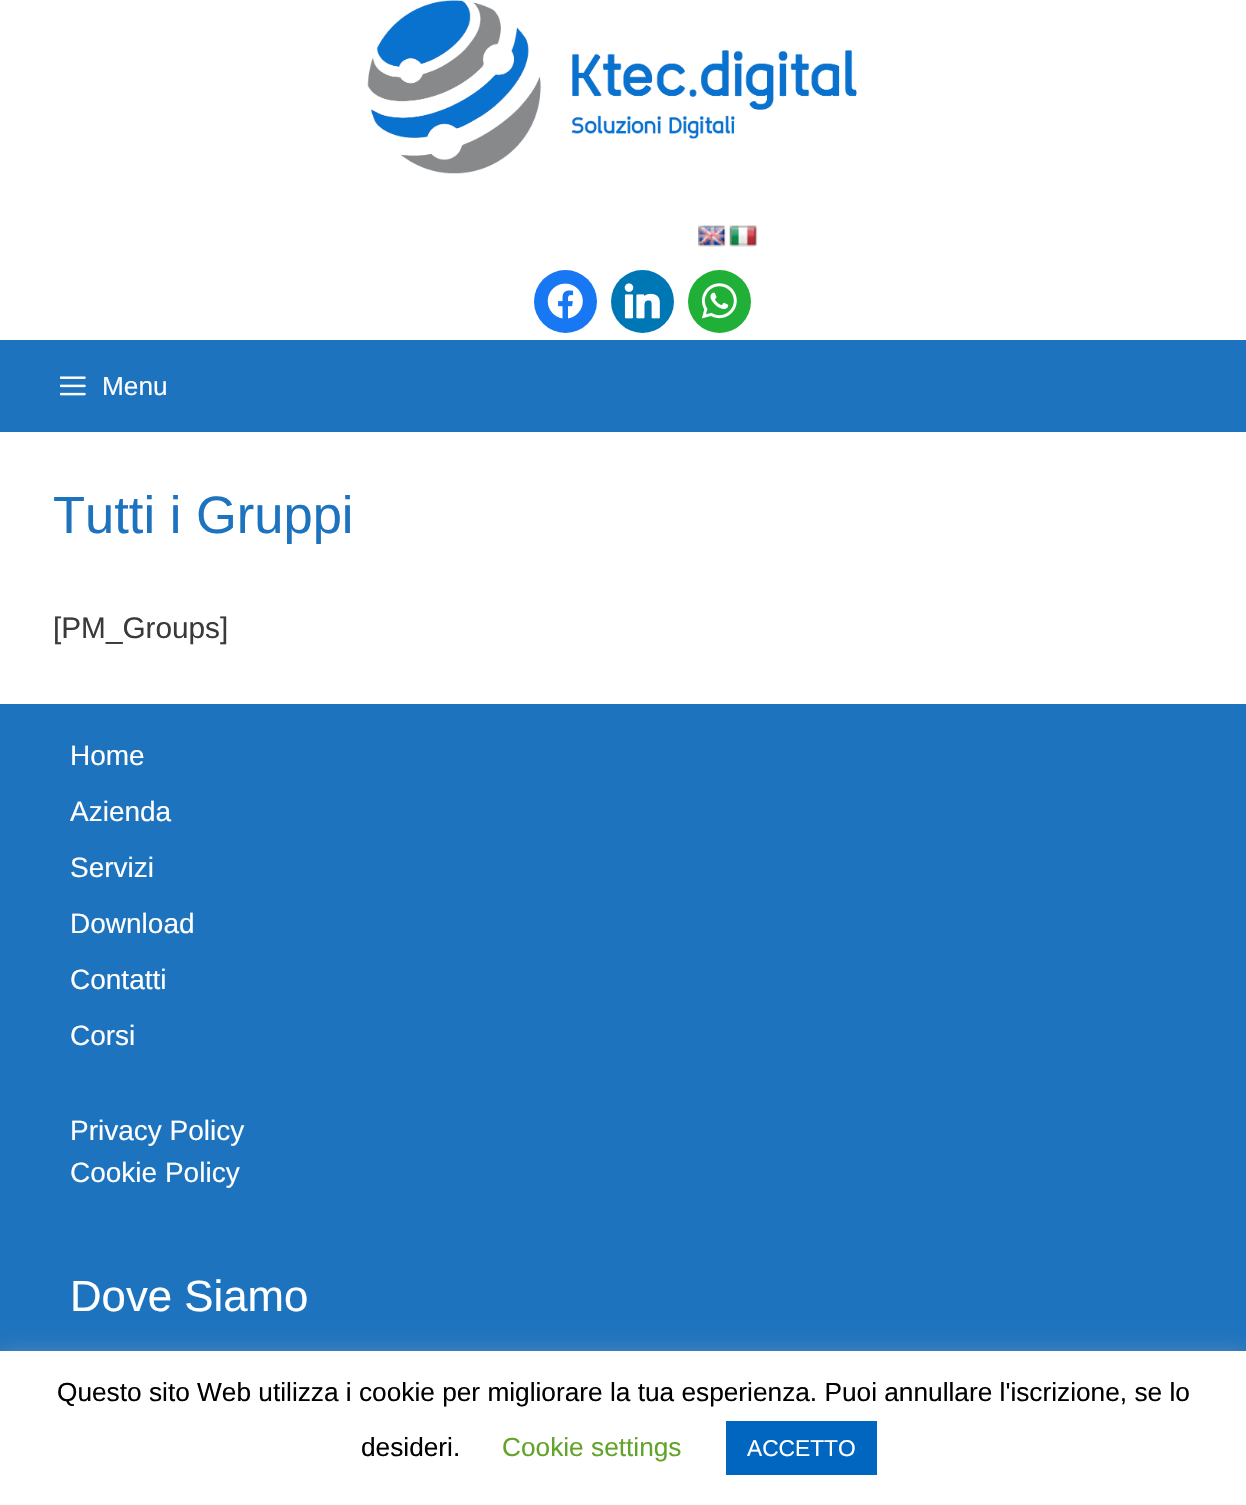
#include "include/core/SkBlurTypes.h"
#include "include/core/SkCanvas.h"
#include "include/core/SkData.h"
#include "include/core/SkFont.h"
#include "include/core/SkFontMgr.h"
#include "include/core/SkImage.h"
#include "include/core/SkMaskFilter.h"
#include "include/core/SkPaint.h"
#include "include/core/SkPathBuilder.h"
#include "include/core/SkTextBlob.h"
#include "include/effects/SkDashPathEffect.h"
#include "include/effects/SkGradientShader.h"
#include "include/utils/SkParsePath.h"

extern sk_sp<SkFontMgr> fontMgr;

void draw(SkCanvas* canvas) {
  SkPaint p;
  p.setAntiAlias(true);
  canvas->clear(SK_ColorWHITE);
  canvas->drawImageRect(SkImages::DeferredFromEncodedData(SkData::MakeFromFileName("images/1.png")), SkRect::MakeLTRB(367, 0, 857, 174), SkSamplingOptions());
  canvas->drawImageRect(SkImages::DeferredFromEncodedData(SkData::MakeFromFileName("images/2.png")), SkRect::MakeLTRB(698, 225, 726, 247), SkSamplingOptions());
  canvas->drawImageRect(SkImages::DeferredFromEncodedData(SkData::MakeFromFileName("images/3.png")), SkRect::MakeLTRB(729, 225, 758, 247), SkSamplingOptions());
  p.setColor(SkColorSetRGB(24, 119, 242));
  canvas->drawCircle(565.5f, 301.5f, 31.5f, p);
  canvas->drawImageRect(SkImages::DeferredFromEncodedData(SkData::MakeFromFileName("images/4.png")), SkRect::MakeLTRB(547, 283, 583, 319), SkSamplingOptions());
  p.setColor(SkColorSetRGB(0, 119, 181));
  canvas->drawCircle(642.5f, 301.5f, 31.5f, p);
  canvas->drawImageRect(SkImages::DeferredFromEncodedData(SkData::MakeFromFileName("images/5.png")), SkRect::MakeLTRB(624, 283, 660, 319), SkSamplingOptions());
  p.setColor(SkColorSetRGB(32, 176, 56));
  canvas->drawCircle(719.5f, 301.5f, 31.5f, p);
  canvas->drawImageRect(SkImages::DeferredFromEncodedData(SkData::MakeFromFileName("images/6.png")), SkRect::MakeLTRB(701, 283, 737, 319), SkSamplingOptions());
  p.setColor(SkColorSetRGB(30, 115, 190));
  canvas->drawRect(SkRect::MakeLTRB(0, 340, 1246, 432), p);
  canvas->drawImageRect(SkImages::DeferredFromEncodedData(SkData::MakeFromFileName("images/7.png")), SkRect::MakeLTRB(60, 376, 86, 396), SkSamplingOptions());
  canvas->drawRect(SkRect::MakeLTRB(0, 704, 1246, 1351), p);
  p.setColor(SkColorSetARGB(77, 172, 171, 171));
  p.setMaskFilter(SkMaskFilter::MakeBlur(kNormal_SkBlurStyle, 9));
  canvas->drawRect(SkRect::MakeLTRB(0, 1349, 1246, 1503), p);
  p.setMaskFilter(nullptr);
  p.setColor(SK_ColorWHITE);
  canvas->drawRect(SkRect::MakeLTRB(0, 1351, 1246, 1505), p);
  p.setColor(SkColorSetRGB(0, 102, 191));
  canvas->drawRect(SkRect::MakeLTRB(726, 1421, 877, 1475), p);
  SkFont font1(fontMgr->matchFamilyStyle("Liberation Sans", SkFontStyle::Normal()), 26.25f);
  font1.setSubpixel(true);
  p.setColor(SK_ColorWHITE);
  canvas->drawString("Menu", 102, 395, font1, p);
  SkFont font2(fontMgr->matchFamilyStyle("Liberation Sans", SkFontStyle::Normal()), 52.5f);
  font2.setSubpixel(true);
  p.setColor(SkColorSetRGB(30, 115, 190));
  canvas->drawString("Tutti i Gruppi", 53, 533, font2, p);
  SkFont font3(fontMgr->matchFamilyStyle("Liberation Sans", SkFontStyle::Normal()), 29.75f);
  font3.setSubpixel(true);
  p.setColor(SkColorSetRGB(58, 58, 58));
  canvas->drawString("[PM_Groups]", 53, 638, font3, p);
  SkFont font4(fontMgr->matchFamilyStyle("Liberation Sans", SkFontStyle::Normal()), 28);
  font4.setSubpixel(true);
  p.setColor(SK_ColorWHITE);
  canvas->drawString("Home", 70, 765, font4, p);
  canvas->drawString("Azienda", 70, 821, font4, p);
  canvas->drawString("Servizi", 70, 877, font4, p);
  canvas->drawString("Download", 70, 933, font4, p);
  canvas->drawString("Contatti", 70, 989, font4, p);
  canvas->drawString("Corsi", 70, 1045, font4, p);
  canvas->drawString("Privacy Policy", 70, 1140, font4, p);
  canvas->drawString("Cookie Policy", 70, 1182, font4, p);
  SkFont font5(fontMgr->matchFamilyStyle("Liberation Sans", SkFontStyle::Normal()), 43.75f);
  font5.setSubpixel(true);
  canvas->drawString("Dove Siamo", 70, 1311, font5, p);
  p.setColor(SK_ColorBLACK);
  canvas->drawString("Questo sito Web utilizza i cookie per migliorare la tua esperienza. Puoi annullare l'iscrizione, se lo", 57, 1401, font1, p);
  canvas->drawString("desideri.", 361, 1456, font1, p);
  p.setColor(SkColorSetRGB(98, 163, 41));
  canvas->drawString("Cookie settings", 502, 1456, font1, p);
  SkFont font6(fontMgr->matchFamilyStyle("Liberation Sans", SkFontStyle::Normal()), 22.75f);
  font6.setSubpixel(true);
  p.setColor(SK_ColorWHITE);
  canvas->drawString("ACCETTO", 747, 1456, font6, p);
}
